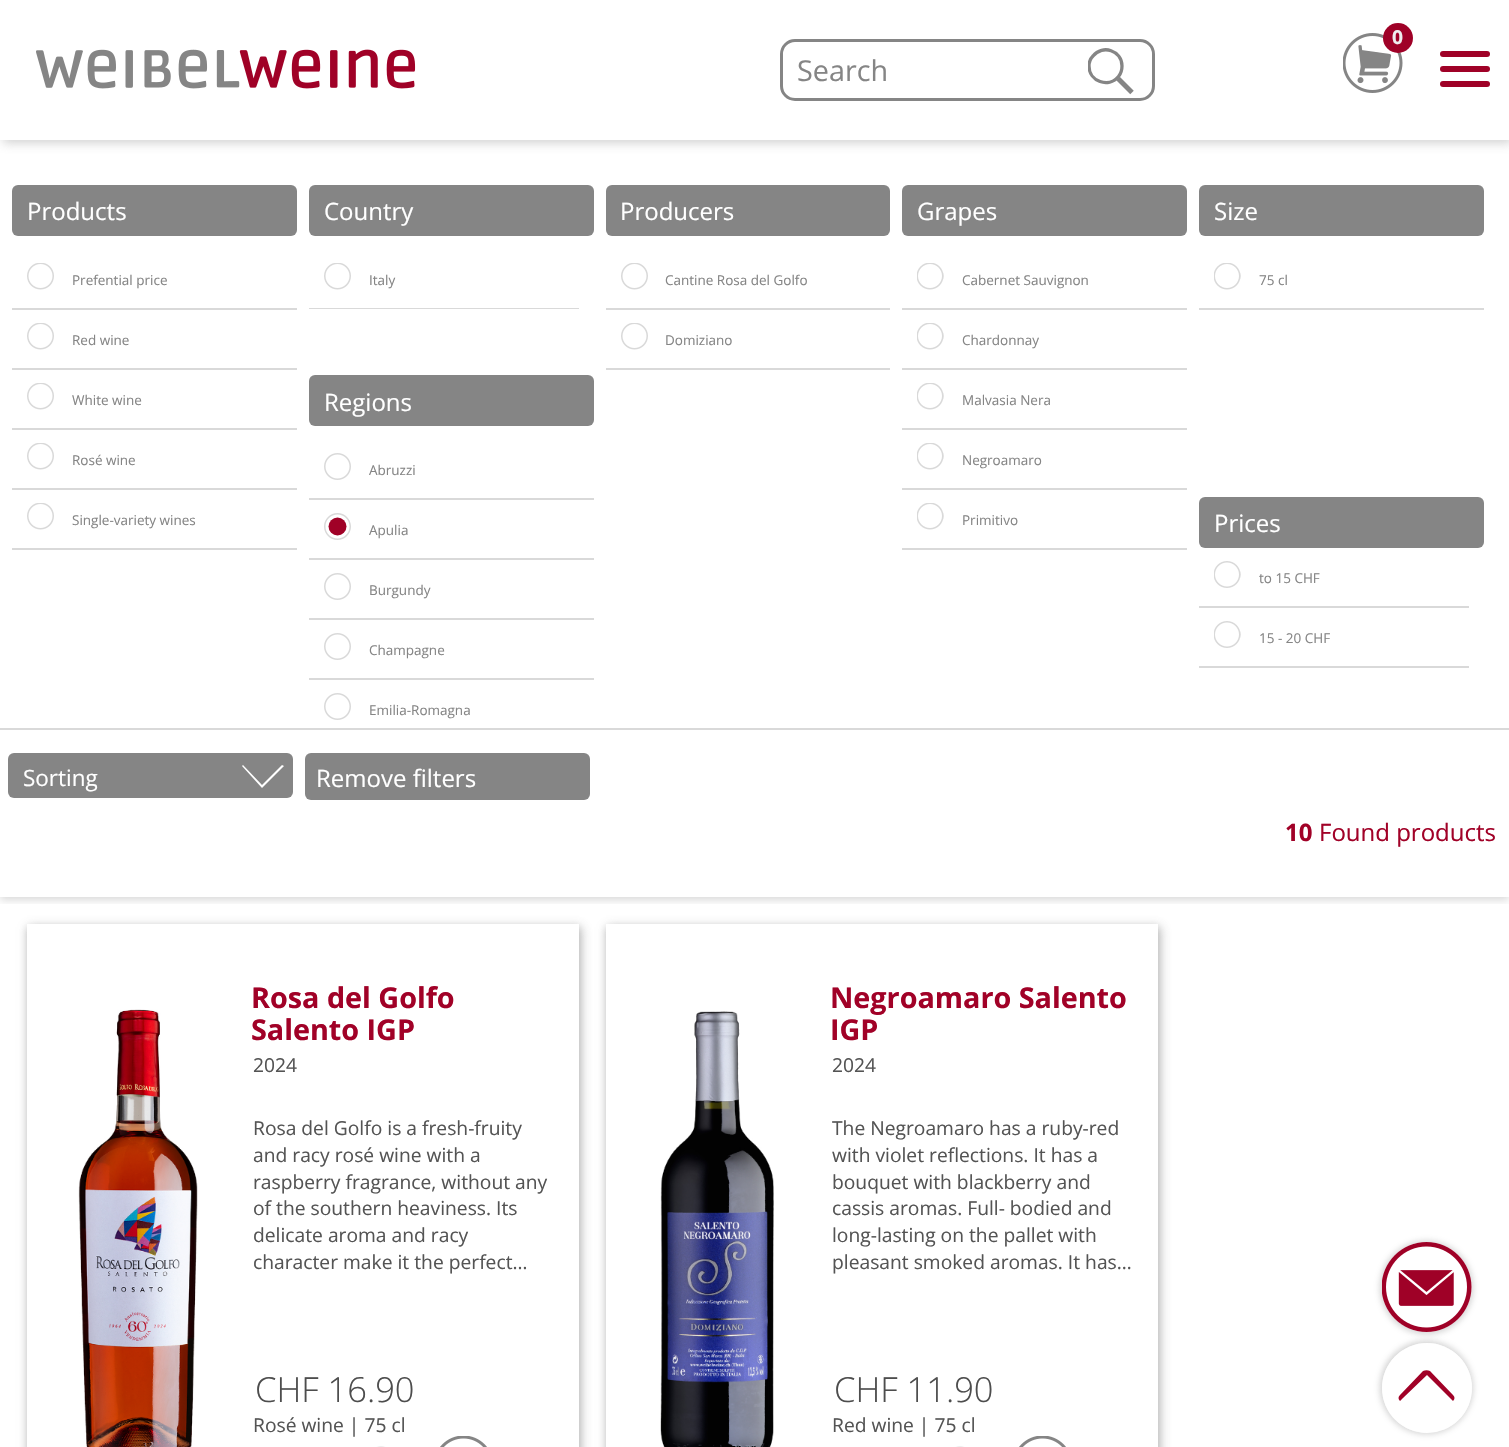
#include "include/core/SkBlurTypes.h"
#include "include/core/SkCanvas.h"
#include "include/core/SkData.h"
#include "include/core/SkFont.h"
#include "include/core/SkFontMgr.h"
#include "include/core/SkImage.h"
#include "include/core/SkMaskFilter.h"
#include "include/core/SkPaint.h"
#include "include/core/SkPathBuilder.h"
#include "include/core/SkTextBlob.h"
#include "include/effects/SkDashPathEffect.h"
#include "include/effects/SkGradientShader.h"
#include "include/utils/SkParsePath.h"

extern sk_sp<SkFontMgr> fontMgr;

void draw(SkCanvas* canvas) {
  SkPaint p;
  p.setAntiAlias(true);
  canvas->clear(SK_ColorWHITE);
  canvas->save();
  canvas->clipPath(SkPathBuilder(SkPathFillType::kEvenOdd).moveTo(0, 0).lineTo(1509, 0).lineTo(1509, 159).lineTo(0, 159).close().moveTo(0, 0).lineTo(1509, 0).lineTo(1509, 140).lineTo(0, 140).close().detach(), true);
  p.setColor(SkColorSetARGB(110, 148, 148, 148));
  p.setMaskFilter(SkMaskFilter::MakeBlur(kNormal_SkBlurStyle, 5));
  canvas->drawRect(SkRect::MakeLTRB(3, 3, 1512, 143), p);
  p.setMaskFilter(nullptr);
  canvas->restore();
  canvas->drawImageRect(SkImages::DeferredFromEncodedData(SkData::MakeFromFileName("images/1.png")), SkRect::MakeLTRB(1343, 33, 1403, 93), SkSamplingOptions());
  p.setColor(SkColorSetRGB(159, 1, 39));
  canvas->drawCircle(1398, 38, 15, p);
  canvas->drawImageRect(SkImages::DeferredFromEncodedData(SkData::MakeFromFileName("images/2.png")), SkRect::MakeLTRB(36, 49, 416, 89), SkSamplingOptions());
  p.setStyle(SkPaint::kStroke_Style);
  p.setStrokeWidth(3);
  p.setColor(SkColorSetRGB(133, 133, 133));
  canvas->drawRoundRect(SkRect::MakeLTRB(781.5f, 40.5f, 1153.5f, 99.5f), 13.5f, 13.5f, p);
  canvas->save();
  canvas->clipRect(SkRect::MakeLTRB(1088, 48, 1134, 95));
  p.setStrokeWidth(3.3f);
  canvas->drawPath(SkPathBuilder().moveTo(1122, 66).cubicTo(1122, 70, 1121, 73.5f, 1118.5f, 76.5f).cubicTo(1108.5f, 88.5f, 1089, 81.5f, 1089, 66).cubicTo(1089, 62.5f, 1090.5f, 58.5f, 1093, 56).cubicTo(1102.5f, 44, 1122, 50.5f, 1122, 66).close().detach(), p);
  canvas->restore();
  p.setStrokeWidth(5);
  canvas->drawPath(SkPathBuilder().moveTo(1118, 78.5f).lineTo(1132, 92.5f).detach(), p);
  p.setStyle(SkPaint::kFill_Style);
  p.setColor(SkColorSetRGB(159, 1, 39));
  canvas->drawRoundRect(SkRect::MakeLTRB(1440, 51, 1490, 57), 3, 3, p);
  canvas->drawRoundRect(SkRect::MakeLTRB(1440, 66, 1490, 72), 3, 3, p);
  canvas->drawRoundRect(SkRect::MakeLTRB(1440, 81, 1490, 87), 3, 3, p);
  canvas->save();
  canvas->clipRect(SkRect::MakeLTRB(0, 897, 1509, 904));
  p.setColor(SkColorSetARGB(38, 0, 0, 0));
  p.setMaskFilter(SkMaskFilter::MakeBlur(kNormal_SkBlurStyle, 4));
  canvas->drawRect(SkRect::MakeLTRB(0, 173, 1509, 900), p);
  p.setMaskFilter(nullptr);
  canvas->restore();
  p.setColor(SkColorSetRGB(133, 133, 133));
  canvas->drawRoundRect(SkRect::MakeLTRB(12, 185, 297, 236), 6, 6, p);
  p.setColor(SkColorSetRGB(217, 217, 217));
  canvas->drawRect(SkRect::MakeLTRB(12, 308, 297, 310), p);
  canvas->drawImageRect(SkImages::DeferredFromEncodedData(SkData::MakeFromFileName("images/3.png")), SkRect::MakeLTRB(27, 263, 54, 290), SkSamplingOptions());
  canvas->drawRect(SkRect::MakeLTRB(12, 368, 297, 370), p);
  canvas->drawImageRect(SkImages::DeferredFromEncodedData(SkData::MakeFromFileName("images/3.png")), SkRect::MakeLTRB(27, 323, 54, 350), SkSamplingOptions());
  canvas->drawRect(SkRect::MakeLTRB(12, 428, 297, 430), p);
  canvas->drawImageRect(SkImages::DeferredFromEncodedData(SkData::MakeFromFileName("images/3.png")), SkRect::MakeLTRB(27, 383, 54, 410), SkSamplingOptions());
  canvas->drawRect(SkRect::MakeLTRB(12, 488, 297, 490), p);
  canvas->drawImageRect(SkImages::DeferredFromEncodedData(SkData::MakeFromFileName("images/3.png")), SkRect::MakeLTRB(27, 443, 54, 470), SkSamplingOptions());
  canvas->drawRect(SkRect::MakeLTRB(12, 548, 297, 550), p);
  canvas->drawImageRect(SkImages::DeferredFromEncodedData(SkData::MakeFromFileName("images/3.png")), SkRect::MakeLTRB(27, 503, 54, 530), SkSamplingOptions());
  p.setColor(SkColorSetRGB(133, 133, 133));
  canvas->drawRoundRect(SkRect::MakeLTRB(309, 185, 594, 236), 6, 6, p);
  p.setColor(SkColorSetRGB(217, 217, 217));
  canvas->drawRect(SkRect::MakeLTRB(309, 308, 579, 309), p);
  canvas->drawImageRect(SkImages::DeferredFromEncodedData(SkData::MakeFromFileName("images/3.png")), SkRect::MakeLTRB(324, 263, 351, 290), SkSamplingOptions());
  p.setColor(SkColorSetRGB(133, 133, 133));
  canvas->drawRoundRect(SkRect::MakeLTRB(309, 375, 594, 426), 6, 6, p);
  p.setColor(SkColorSetRGB(217, 217, 217));
  canvas->drawRect(SkRect::MakeLTRB(309, 498, 594, 500), p);
  canvas->drawImageRect(SkImages::DeferredFromEncodedData(SkData::MakeFromFileName("images/4.png")), SkRect::MakeLTRB(324, 453, 351, 480), SkSamplingOptions());
  canvas->drawRect(SkRect::MakeLTRB(309, 558, 594, 560), p);
  canvas->drawImageRect(SkImages::DeferredFromEncodedData(SkData::MakeFromFileName("images/5.png")), SkRect::MakeLTRB(324, 513, 351, 540), SkSamplingOptions());
  canvas->drawRect(SkRect::MakeLTRB(309, 618, 594, 620), p);
  canvas->drawImageRect(SkImages::DeferredFromEncodedData(SkData::MakeFromFileName("images/4.png")), SkRect::MakeLTRB(324, 573, 351, 600), SkSamplingOptions());
  canvas->drawRect(SkRect::MakeLTRB(309, 678, 594, 680), p);
  canvas->drawImageRect(SkImages::DeferredFromEncodedData(SkData::MakeFromFileName("images/4.png")), SkRect::MakeLTRB(324, 633, 351, 660), SkSamplingOptions());
  canvas->drawImageRect(SkImages::DeferredFromEncodedData(SkData::MakeFromFileName("images/4.png")), SkRect::MakeLTRB(324, 693, 351, 720), SkSamplingOptions());
  p.setColor(SkColorSetRGB(133, 133, 133));
  canvas->drawRoundRect(SkRect::MakeLTRB(606, 185, 890, 236), 6, 6, p);
  p.setColor(SkColorSetRGB(217, 217, 217));
  canvas->drawRect(SkRect::MakeLTRB(606, 308, 890, 310), p);
  canvas->drawImageRect(SkImages::DeferredFromEncodedData(SkData::MakeFromFileName("images/3.png")), SkRect::MakeLTRB(621, 263, 648, 290), SkSamplingOptions());
  canvas->drawRect(SkRect::MakeLTRB(606, 368, 890, 370), p);
  canvas->drawImageRect(SkImages::DeferredFromEncodedData(SkData::MakeFromFileName("images/3.png")), SkRect::MakeLTRB(621, 323, 648, 350), SkSamplingOptions());
  p.setColor(SkColorSetRGB(133, 133, 133));
  canvas->drawRoundRect(SkRect::MakeLTRB(902, 185, 1187, 236), 6, 6, p);
  p.setColor(SkColorSetRGB(217, 217, 217));
  canvas->drawRect(SkRect::MakeLTRB(902, 308, 1187, 310), p);
  canvas->drawImageRect(SkImages::DeferredFromEncodedData(SkData::MakeFromFileName("images/6.png")), SkRect::MakeLTRB(917, 263, 944, 290), SkSamplingOptions());
  canvas->drawRect(SkRect::MakeLTRB(902, 368, 1187, 370), p);
  canvas->drawImageRect(SkImages::DeferredFromEncodedData(SkData::MakeFromFileName("images/6.png")), SkRect::MakeLTRB(917, 323, 944, 350), SkSamplingOptions());
  canvas->drawRect(SkRect::MakeLTRB(902, 428, 1187, 430), p);
  canvas->drawImageRect(SkImages::DeferredFromEncodedData(SkData::MakeFromFileName("images/6.png")), SkRect::MakeLTRB(917, 383, 944, 410), SkSamplingOptions());
  canvas->drawRect(SkRect::MakeLTRB(902, 488, 1187, 490), p);
  canvas->drawImageRect(SkImages::DeferredFromEncodedData(SkData::MakeFromFileName("images/6.png")), SkRect::MakeLTRB(917, 443, 944, 470), SkSamplingOptions());
  canvas->drawRect(SkRect::MakeLTRB(902, 548, 1187, 550), p);
  canvas->drawImageRect(SkImages::DeferredFromEncodedData(SkData::MakeFromFileName("images/6.png")), SkRect::MakeLTRB(917, 503, 944, 530), SkSamplingOptions());
  p.setColor(SkColorSetRGB(133, 133, 133));
  canvas->drawRoundRect(SkRect::MakeLTRB(1199, 185, 1484, 236), 6, 6, p);
  p.setColor(SkColorSetRGB(217, 217, 217));
  canvas->drawRect(SkRect::MakeLTRB(1199, 308, 1484, 310), p);
  canvas->drawImageRect(SkImages::DeferredFromEncodedData(SkData::MakeFromFileName("images/6.png")), SkRect::MakeLTRB(1214, 263, 1241, 290), SkSamplingOptions());
  p.setColor(SkColorSetRGB(133, 133, 133));
  canvas->drawRoundRect(SkRect::MakeLTRB(1199, 497, 1484, 548), 6, 6, p);
  p.setColor(SkColorSetRGB(217, 217, 217));
  canvas->drawRect(SkRect::MakeLTRB(1199, 606, 1469, 608), p);
  canvas->drawImageRect(SkImages::DeferredFromEncodedData(SkData::MakeFromFileName("images/7.png")), SkRect::MakeLTRB(1214, 561, 1241, 588), SkSamplingOptions());
  canvas->drawRect(SkRect::MakeLTRB(1199, 666, 1469, 668), p);
  canvas->drawImageRect(SkImages::DeferredFromEncodedData(SkData::MakeFromFileName("images/7.png")), SkRect::MakeLTRB(1214, 621, 1241, 648), SkSamplingOptions());
  canvas->drawRect(SkRect::MakeLTRB(0, 728, 1509, 730), p);
  p.setColor(SkColorSetRGB(133, 133, 133));
  canvas->drawRoundRect(SkRect::MakeLTRB(8, 753, 293, 798), 6, 6, p);
  p.setColor(SK_ColorWHITE);
  canvas->drawPath(SkPathBuilder().moveTo(242, 766).lineTo(243, 765).lineTo(262, 785).lineTo(282, 765).lineTo(284, 766).lineTo(262, 788).close().detach(), p);
  p.setColor(SkColorSetRGB(133, 133, 133));
  canvas->drawRoundRect(SkRect::MakeLTRB(305, 753, 590, 800), 6, 6, p);
  canvas->save();
  canvas->clipPath(SkPathBuilder(SkPathFillType::kEvenOdd).moveTo(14, 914).lineTo(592, 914).lineTo(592, 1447).lineTo(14, 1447).close().moveTo(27, 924).lineTo(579, 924).lineTo(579, 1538).lineTo(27, 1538).close().detach(), true);
  p.setColor(SkColorSetARGB(51, 0, 0, 0));
  p.setMaskFilter(SkMaskFilter::MakeBlur(kNormal_SkBlurStyle, 4));
  canvas->drawRect(SkRect::MakeLTRB(27, 927, 579, 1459), p);
  p.setMaskFilter(nullptr);
  canvas->restore();
  canvas->save();
  canvas->clipPath(SkPathBuilder(SkPathFillType::kEvenOdd).moveTo(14, 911).lineTo(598, 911).lineTo(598, 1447).lineTo(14, 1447).close().moveTo(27, 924).lineTo(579, 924).lineTo(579, 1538).lineTo(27, 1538).close().detach(), true);
  p.setColor(SkColorSetARGB(110, 148, 148, 148));
  p.setMaskFilter(SkMaskFilter::MakeBlur(kNormal_SkBlurStyle, 5));
  canvas->drawRect(SkRect::MakeLTRB(30, 927, 582, 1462), p);
  p.setMaskFilter(nullptr);
  canvas->restore();
  canvas->drawImageRect(SkImages::DeferredFromEncodedData(SkData::MakeFromFileName("images/8.png")), SkRect::MakeLTRB(78, 1009, 198, 1447), SkSamplingOptions());
  canvas->drawImageRect(SkImages::DeferredFromEncodedData(SkData::MakeFromFileName("images/9.png")), SkRect::MakeLTRB(440, 1436, 487, 1447), SkSamplingOptions());
  p.setStyle(SkPaint::kStroke_Style);
  p.setStrokeWidth(2);
  p.setColor(SkColorSetRGB(238, 238, 238));
  canvas->drawPath(SkPathBuilder().moveTo(381, 1447).cubicTo(385.5f, 1447, 389, 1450.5f, 389, 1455).lineTo(389, 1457).lineTo(373, 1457).lineTo(373, 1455).cubicTo(373, 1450.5f, 376.5f, 1447, 381, 1447).close().detach(), p);
  canvas->save();
  canvas->clipPath(SkPathBuilder(SkPathFillType::kEvenOdd).moveTo(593, 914).lineTo(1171, 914).lineTo(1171, 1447).lineTo(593, 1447).close().moveTo(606, 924).lineTo(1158, 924).lineTo(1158, 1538).lineTo(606, 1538).close().detach(), true);
  p.setStyle(SkPaint::kFill_Style);
  p.setColor(SkColorSetARGB(51, 0, 0, 0));
  p.setMaskFilter(SkMaskFilter::MakeBlur(kNormal_SkBlurStyle, 4));
  canvas->drawRect(SkRect::MakeLTRB(606, 927, 1158, 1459), p);
  p.setMaskFilter(nullptr);
  canvas->restore();
  canvas->save();
  canvas->clipPath(SkPathBuilder(SkPathFillType::kEvenOdd).moveTo(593, 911).lineTo(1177, 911).lineTo(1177, 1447).lineTo(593, 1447).close().moveTo(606, 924).lineTo(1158, 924).lineTo(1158, 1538).lineTo(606, 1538).close().detach(), true);
  p.setColor(SkColorSetARGB(110, 148, 148, 148));
  p.setMaskFilter(SkMaskFilter::MakeBlur(kNormal_SkBlurStyle, 5));
  canvas->drawRect(SkRect::MakeLTRB(609, 927, 1161, 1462), p);
  p.setMaskFilter(nullptr);
  canvas->restore();
  canvas->drawImageRect(SkImages::DeferredFromEncodedData(SkData::MakeFromFileName("images/10.png")), SkRect::MakeLTRB(660, 1011, 774, 1447), SkSamplingOptions());
  canvas->drawImageRect(SkImages::DeferredFromEncodedData(SkData::MakeFromFileName("images/9.png")), SkRect::MakeLTRB(1019, 1436, 1066, 1447), SkSamplingOptions());
  p.setStyle(SkPaint::kStroke_Style);
  p.setColor(SkColorSetRGB(238, 238, 238));
  canvas->drawPath(SkPathBuilder().moveTo(960, 1447).cubicTo(964.5f, 1447, 968, 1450.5f, 968, 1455).lineTo(968, 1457).lineTo(952, 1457).lineTo(952, 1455).cubicTo(952, 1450.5f, 955.5f, 1447, 960, 1447).close().detach(), p);
  p.setStyle(SkPaint::kFill_Style);
  p.setColor(SkColorSetARGB(89, 123, 123, 123));
  p.setMaskFilter(SkMaskFilter::MakeBlur(kNormal_SkBlurStyle, 3));
  canvas->drawRoundRect(SkRect::MakeLTRB(1380, 1241, 1473, 1334), 46.5f, 46.5f, p);
  p.setMaskFilter(nullptr);
  canvas->drawImageRect(SkImages::DeferredFromEncodedData(SkData::MakeFromFileName("images/11.png")), SkRect::MakeLTRB(1382, 1242, 1472, 1332), SkSamplingOptions());
  p.setMaskFilter(SkMaskFilter::MakeBlur(kNormal_SkBlurStyle, 3));
  canvas->drawRoundRect(SkRect::MakeLTRB(1380, 1341, 1473, 1434), 46.5f, 46.5f, p);
  p.setMaskFilter(nullptr);
  p.setColor(SkColorSetRGB(252, 252, 252));
  canvas->drawCircle(1427, 1388, 45, p);
  p.setColor(SkColorSetARGB(204, 255, 255, 255));
  canvas->drawCircle(1427, 1388, 45, p);
  p.setColor(SkColorSetRGB(161, 1, 39));
  canvas->drawPath(SkPathBuilder(SkPathFillType::kEvenOdd).moveTo(1430, 1371).lineTo(1453, 1395).cubicTo(1455, 1397, 1455, 1399, 1453, 1401).lineTo(1430, 1425).cubicTo(1428, 1426, 1425, 1426, 1423, 1425).lineTo(1400, 1401).cubicTo(1398, 1399, 1398, 1397, 1400, 1395).lineTo(1423, 1371).cubicTo(1425, 1370, 1428, 1370, 1430, 1371).close().moveTo(1427, 1375).lineTo(1453, 1401).lineTo(1430, 1425).cubicTo(1428, 1426, 1425, 1426, 1423, 1425).lineTo(1400, 1401).lineTo(1403, 1398).close().detach(), p);
  SkFont font1(fontMgr->matchFamilyStyle("Open Sans", SkFontStyle::Bold()), 19.25f);
  font1.setSubpixel(true);
  p.setColor(SkColorSetRGB(238, 238, 238));
  canvas->drawString("0", 1392, 44, font1, p);
  SkFont font2(fontMgr->matchFamilyStyle("Open Sans", SkFontStyle::Normal()), 28.75f);
  font2.setSubpixel(true);
  p.setColor(SkColorSetRGB(133, 133, 133));
  canvas->drawString("Search", 797, 81, font2, p);
  SkFont font3(fontMgr->matchFamilyStyle("Open Sans", SkFontStyle::Normal()), 24);
  font3.setSubpixel(true);
  p.setColor(SK_ColorWHITE);
  canvas->drawString("Products", 27, 220, font3, p);
  SkFont font4(fontMgr->matchFamilyStyle("Open Sans", SkFontStyle::Normal()), 13.5f);
  font4.setSubpixel(true);
  p.setColor(SkColorSetRGB(133, 133, 133));
  canvas->drawString("Prefential price", 72, 285, font4, p);
  canvas->drawString("Red wine", 72, 345, font4, p);
  canvas->drawString("White wine", 72, 405, font4, p);
  canvas->drawString("Rosé wine", 72, 465, font4, p);
  canvas->drawString("Single-variety wines", 72, 525, font4, p);
  p.setColor(SK_ColorWHITE);
  canvas->drawString("Country", 324, 220, font3, p);
  p.setColor(SkColorSetRGB(133, 133, 133));
  canvas->drawString("Italy", 369, 285, font4, p);
  p.setColor(SK_ColorWHITE);
  canvas->drawString("Regions", 324, 411, font3, p);
  p.setColor(SkColorSetRGB(133, 133, 133));
  canvas->drawString("Abruzzi", 369, 475, font4, p);
  canvas->drawString("Apulia", 369, 535, font4, p);
  canvas->drawString("Burgundy", 369, 595, font4, p);
  canvas->drawString("Champagne", 369, 655, font4, p);
  canvas->drawString("Emilia-Romagna", 369, 715, font4, p);
  p.setColor(SK_ColorWHITE);
  canvas->drawString("Producers", 620, 220, font3, p);
  p.setColor(SkColorSetRGB(133, 133, 133));
  canvas->drawString("Cantine Rosa del Golfo", 665, 285, font4, p);
  canvas->drawString("Domiziano", 665, 345, font4, p);
  p.setColor(SK_ColorWHITE);
  canvas->drawString("Grapes", 917, 220, font3, p);
  p.setColor(SkColorSetRGB(133, 133, 133));
  canvas->drawString("Cabernet Sauvignon", 962, 285, font4, p);
  canvas->drawString("Chardonnay", 962, 345, font4, p);
  canvas->drawString("Malvasia Nera", 962, 405, font4, p);
  canvas->drawString("Negroamaro", 962, 465, font4, p);
  canvas->drawString("Primitivo", 962, 525, font4, p);
  p.setColor(SK_ColorWHITE);
  canvas->drawString("Size", 1214, 220, font3, p);
  p.setColor(SkColorSetRGB(133, 133, 133));
  canvas->drawString("75 cl", 1259, 285, font4, p);
  p.setColor(SK_ColorWHITE);
  canvas->drawString("Prices", 1214, 532, font3, p);
  p.setColor(SkColorSetRGB(133, 133, 133));
  canvas->drawString("to 15 CHF", 1259, 583, font4, p);
  canvas->drawString("15 - 20 CHF", 1259, 643, font4, p);
  SkFont font5(fontMgr->matchFamilyStyle("Open Sans", SkFontStyle::Normal()), 22.5f);
  font5.setSubpixel(true);
  p.setColor(SK_ColorWHITE);
  canvas->drawString("Sorting", 23, 786, font5, p);
  canvas->drawString("Remove filters", 316, 787, font3, p);
  SkFont font6(fontMgr->matchFamilyStyle("Open Sans", SkFontStyle::Bold()), 24);
  font6.setSubpixel(true);
  p.setColor(SkColorSetRGB(161, 1, 39));
  canvas->drawString("10", 1285, 841, font6, p);
  canvas->drawString("Found products", 1319, 841, font3, p);
  SkFont font7(fontMgr->matchFamilyStyle("Open Sans", SkFontStyle::Bold()), 28.75f);
  font7.setSubpixel(true);
  canvas->drawString("Rosa del Golfo", 251, 1008, font7, p);
  canvas->drawString("Salento IGP", 251, 1040, font7, p);
  SkFont font8(fontMgr->matchFamilyStyle("Open Sans", SkFontStyle::Normal()), 19.25f);
  font8.setSubpixel(true);
  p.setColor(SkColorSetRGB(84, 84, 84));
  canvas->drawString("2024", 253, 1072, font8, p);
  canvas->drawString("Rosa del Golfo is a fresh-fruity", 253, 1135, font8, p);
  canvas->drawString("and racy rosé wine with a", 253, 1162, font8, p);
  canvas->drawString("raspberry fragrance, without any", 253, 1189, font8, p);
  canvas->drawString("of the southern heaviness. Its", 253, 1215, font8, p);
  canvas->drawString("delicate aroma and racy", 253, 1242, font8, p);
  canvas->drawString("character make it the perfect…", 253, 1269, font8, p);
  SkFont font9(fontMgr->matchFamilyStyle("Open Sans", SkFontStyle(300, SkFontStyle::kNormal_Width, SkFontStyle::kUpright_Slant)), 34.5f);
  font9.setSubpixel(true);
  p.setColor(SkColorSetRGB(77, 77, 77));
  canvas->drawString("CHF 16.90", 255, 1402, font9, p);
  p.setColor(SkColorSetRGB(84, 84, 84));
  canvas->drawString("Rosé wine | 75 cl", 253, 1432, font8, p);
  p.setColor(SkColorSetRGB(161, 1, 39));
  canvas->drawString("Negroamaro Salento", 830, 1008, font7, p);
  canvas->drawString("IGP", 830, 1040, font7, p);
  p.setColor(SkColorSetRGB(84, 84, 84));
  canvas->drawString("2024", 832, 1072, font8, p);
  canvas->drawString("The Negroamaro has a ruby-red", 832, 1135, font8, p);
  canvas->drawString("with violet reflections. It has a", 832, 1162, font8, p);
  canvas->drawString("bouquet with blackberry and", 832, 1189, font8, p);
  canvas->drawString("cassis aromas. Full- bodied and", 832, 1215, font8, p);
  canvas->drawString("long-lasting on the pallet with", 832, 1242, font8, p);
  canvas->drawString("pleasant smoked aromas. It has…", 832, 1269, font8, p);
  p.setColor(SkColorSetRGB(77, 77, 77));
  canvas->drawString("CHF 11.90", 834, 1402, font9, p);
  p.setColor(SkColorSetRGB(84, 84, 84));
  canvas->drawString("Red wine | 75 cl", 832, 1432, font8, p);
}
